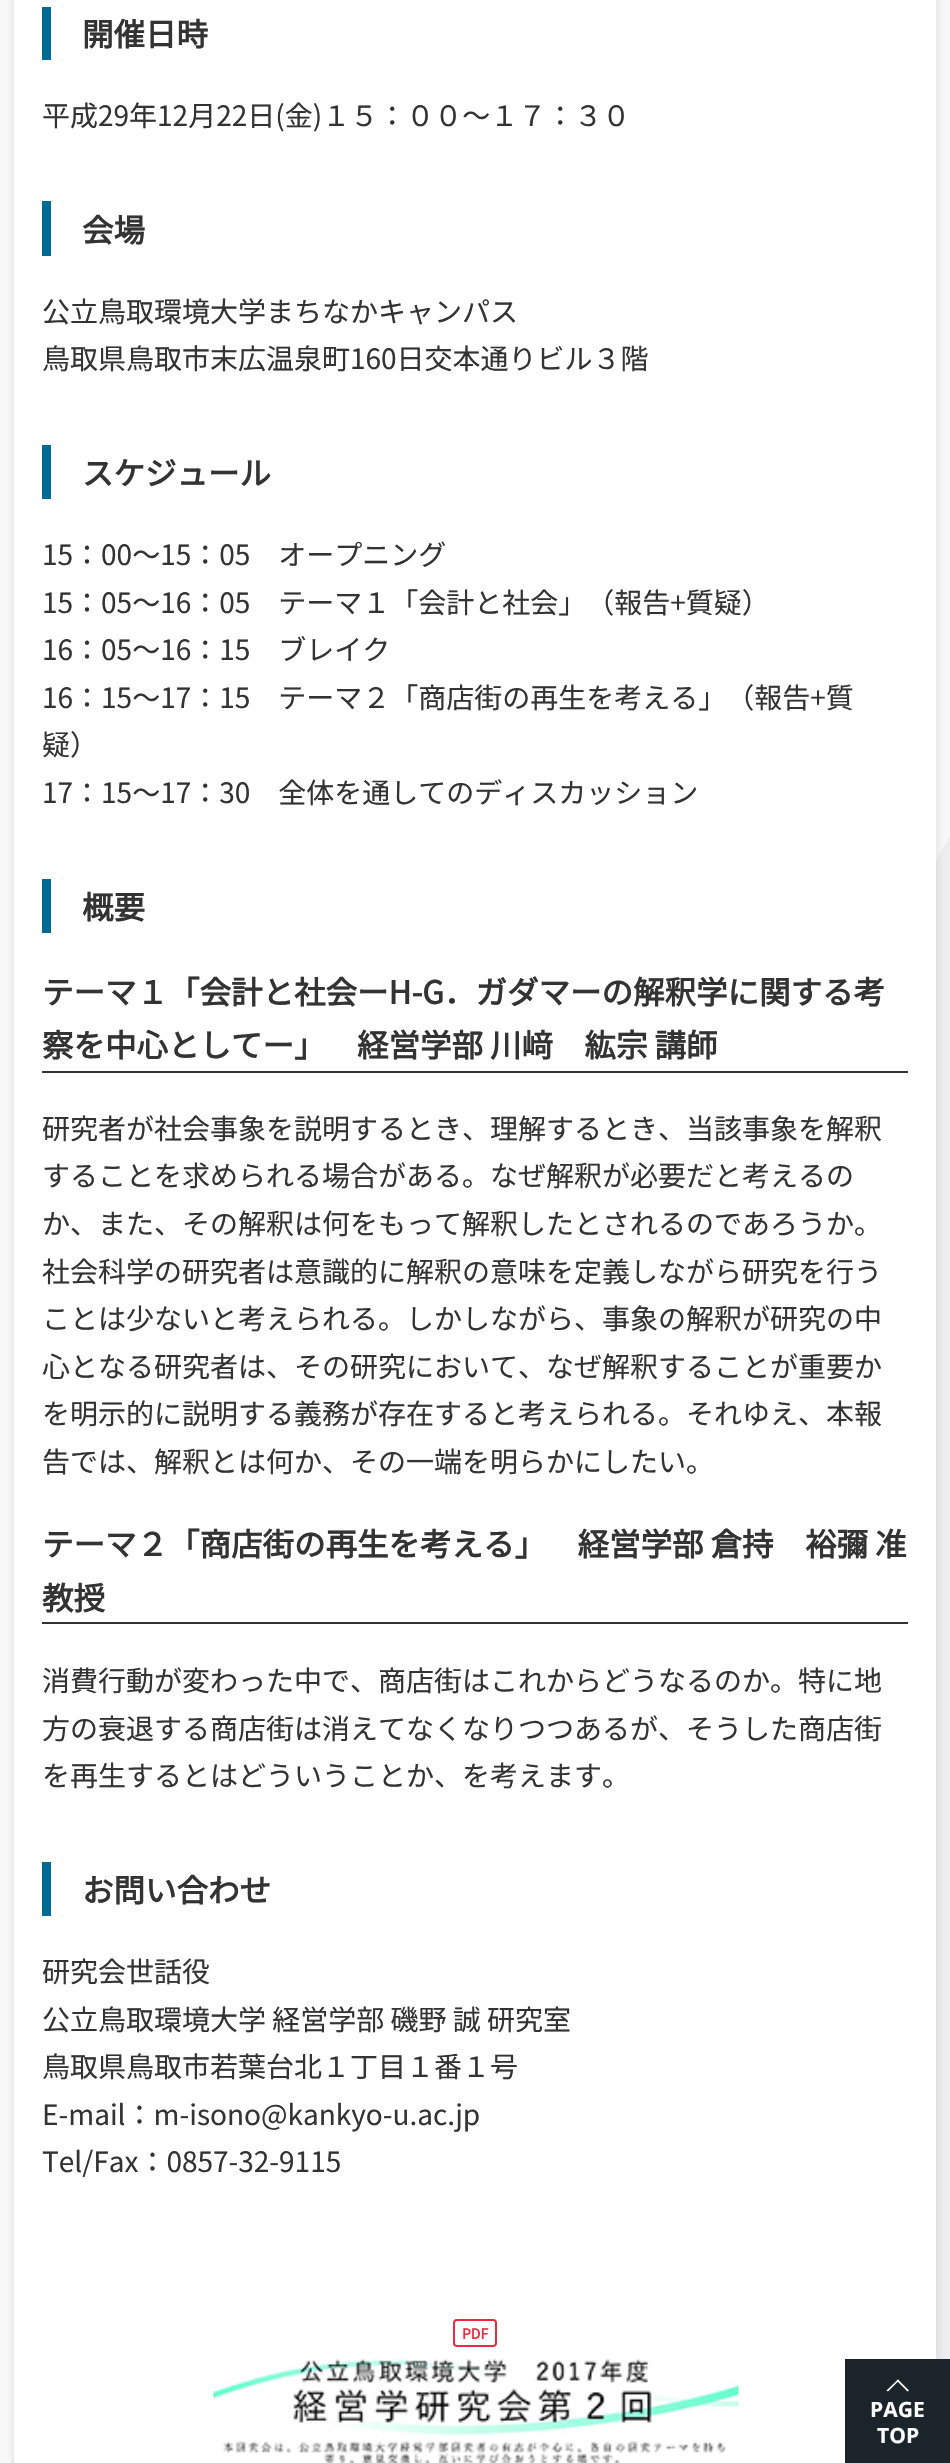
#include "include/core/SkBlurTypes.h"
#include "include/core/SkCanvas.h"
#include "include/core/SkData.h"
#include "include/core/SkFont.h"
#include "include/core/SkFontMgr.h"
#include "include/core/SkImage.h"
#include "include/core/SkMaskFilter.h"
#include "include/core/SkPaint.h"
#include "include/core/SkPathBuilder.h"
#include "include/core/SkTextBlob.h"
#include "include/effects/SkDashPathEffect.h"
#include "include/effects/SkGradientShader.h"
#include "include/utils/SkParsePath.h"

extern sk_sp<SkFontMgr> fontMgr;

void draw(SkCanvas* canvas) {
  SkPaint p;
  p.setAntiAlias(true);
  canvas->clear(SkColorSetRGB(248, 248, 248));
  p.setColor(SkColorSetRGB(238, 238, 238));
  canvas->drawPath(SkPathBuilder().moveTo(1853, -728).lineTo(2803, -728).lineTo(47, 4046).lineTo(-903, 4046).close().detach(), p);
  p.setColor(SkColorSetARGB(13, 0, 0, 0));
  p.setMaskFilter(SkMaskFilter::MakeBlur(kNormal_SkBlurStyle, 2));
  canvas->drawRect(SkRect::MakeLTRB(11, -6, 940, 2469), p);
  p.setMaskFilter(nullptr);
  p.setColor(SK_ColorWHITE);
  canvas->drawRect(SkRect::MakeLTRB(14, 0, 936, 2463), p);
  p.setColor(SkColorSetRGB(0, 106, 148));
  canvas->drawRect(SkRect::MakeLTRB(42, 7, 51, 60), p);
  canvas->drawRect(SkRect::MakeLTRB(42, 201, 51, 256), p);
  canvas->drawRect(SkRect::MakeLTRB(42, 445, 51, 499), p);
  canvas->drawRect(SkRect::MakeLTRB(42, 879, 51, 933), p);
  p.setColor(SkColorSetRGB(51, 51, 51));
  canvas->drawRect(SkRect::MakeLTRB(42, 1071, 908, 1073), p);
  canvas->drawRect(SkRect::MakeLTRB(42, 1622, 908, 1624), p);
  p.setColor(SkColorSetRGB(0, 106, 148));
  canvas->drawRect(SkRect::MakeLTRB(42, 1862, 51, 1916), p);
  p.setStyle(SkPaint::kStroke_Style);
  p.setStrokeWidth(2);
  p.setColor(SkColorSetRGB(236, 41, 65));
  canvas->drawRoundRect(SkRect::MakeLTRB(454, 2320, 496, 2346), 3, 3, p);
  canvas->drawImageRect(SkImages::DeferredFromEncodedData(SkData::MakeFromFileName("images/1.png")), SkRect::MakeLTRB(213, 2358, 739, 2463), SkSamplingOptions());
  p.setStyle(SkPaint::kFill_Style);
  p.setColor(SkColorSetRGB(27, 36, 43));
  canvas->drawRect(SkRect::MakeLTRB(845, 2359, 950, 2463), p);
  p.setColor(SK_ColorWHITE);
  canvas->drawPath(SkPathBuilder().moveTo(886.5f, 2390.5f).lineTo(898, 2379.5f).lineTo(899, 2380.5f).lineTo(888, 2391.5f).close().detach(), p);
  canvas->drawPath(SkPathBuilder().moveTo(896.5f, 2380.5f).lineTo(898, 2379.5f).lineTo(909, 2390.5f).lineTo(907.5f, 2391.5f).close().detach(), p);
  SkFont font1(fontMgr->matchFamilyStyle("Noto Sans JP", SkFontStyle::Bold()), 31.5f);
  font1.setSubpixel(true);
  p.setColor(SkColorSetRGB(51, 51, 51));
  canvas->drawString("開催日時", 82, 46, font1, p);
  SkFont font2(fontMgr->matchFamilyStyle("Noto Sans JP", SkFontStyle::Normal()), 28);
  font2.setSubpixel(true);
  canvas->drawString("平成29年12月22日(金)１５：００～１７：３０", 42, 126, font2, p);
  canvas->drawString("会場", 82, 242, font1, p);
  canvas->drawString("公立鳥取環境大学まちなかキャンパス", 42, 322, font2, p);
  canvas->drawString("鳥取県鳥取市末広温泉町160日交本通りビル３階", 42, 369, font2, p);
  canvas->drawString("スケジュール", 82, 485, font1, p);
  canvas->drawString("15：00～15：05　オープニング", 42, 565, font2, p);
  canvas->drawString("15：05～16：05　テーマ１「会計と社会」（報告+質疑）", 42, 613, font2, p);
  canvas->drawString("16：05～16：15　ブレイク", 42, 660, font2, p);
  canvas->drawString("16：15～17：15　テーマ２「商店街の再生を考える」（報告+質", 42, 708, font2, p);
  canvas->drawString("疑）", 42, 755, font2, p);
  canvas->drawString("17：15～17：30　全体を通してのディスカッション", 42, 803, font2, p);
  canvas->drawString("概要", 82, 919, font1, p);
  canvas->drawString("テーマ１「会計と社会ーH-G．ガダマーの解釈学に関する考", 42, 1004, font1, p);
  canvas->drawString("察を中心としてー」　経営学部 川﨑　紘宗 講師", 42, 1057, font1, p);
  canvas->drawString("研究者が社会事象を説明するとき、理解するとき、当該事象を解釈", 42, 1139, font2, p);
  canvas->drawString("することを求められる場合がある。なぜ解釈が必要だと考えるの", 42, 1186, font2, p);
  canvas->drawString("か、また、その解釈は何をもって解釈したとされるのであろうか。", 42, 1234, font2, p);
  canvas->drawString("社会科学の研究者は意識的に解釈の意味を定義しながら研究を行う", 42, 1282, font2, p);
  canvas->drawString("ことは少ないと考えられる。しかしながら、事象の解釈が研究の中", 42, 1329, font2, p);
  canvas->drawString("心となる研究者は、その研究において、なぜ解釈することが重要か", 42, 1377, font2, p);
  canvas->drawString("を明示的に説明する義務が存在すると考えられる。それゆえ、本報", 42, 1424, font2, p);
  canvas->drawString("告では、解釈とは何か、その一端を明らかにしたい。", 42, 1472, font2, p);
  canvas->drawString("テーマ２「商店街の再生を考える」　経営学部 倉持　裕彌 准", 42, 1556, font1, p);
  canvas->drawString("教授", 42, 1610, font1, p);
  canvas->drawString("消費行動が変わった中で、商店街はこれからどうなるのか。特に地", 42, 1691, font2, p);
  canvas->drawString("方の衰退する商店街は消えてなくなりつつあるが、そうした商店街", 42, 1739, font2, p);
  canvas->drawString("を再生するとはどういうことか、を考えます。", 42, 1786, font2, p);
  canvas->drawString("お問い合わせ", 82, 1902, font1, p);
  canvas->drawString("研究会世話役", 42, 1982, font2, p);
  canvas->drawString("公立鳥取環境大学 経営学部 磯野 誠 研究室", 42, 2030, font2, p);
  canvas->drawString("鳥取県鳥取市若葉台北１丁目１番１号", 42, 2077, font2, p);
  canvas->drawString("E-mail：m-isono@kankyo-u.ac.jp", 42, 2125, font2, p);
  canvas->drawString("Tel/Fax：0857-32-9115", 42, 2172, font2, p);
  SkFont font3(fontMgr->matchFamilyStyle("Noto Sans JP", SkFontStyle::Bold()), 14);
  font3.setSubpixel(true);
  p.setColor(SkColorSetRGB(236, 41, 65));
  canvas->drawString("PDF", 462, 2339, font3, p);
  SkFont font4(fontMgr->matchFamilyStyle("Open Sans", SkFontStyle::Bold()), 21);
  font4.setSubpixel(true);
  p.setColor(SK_ColorWHITE);
  canvas->drawString("PAGE", 870, 2417, font4, p);
  canvas->drawString("TOP", 877, 2443, font4, p);
}
